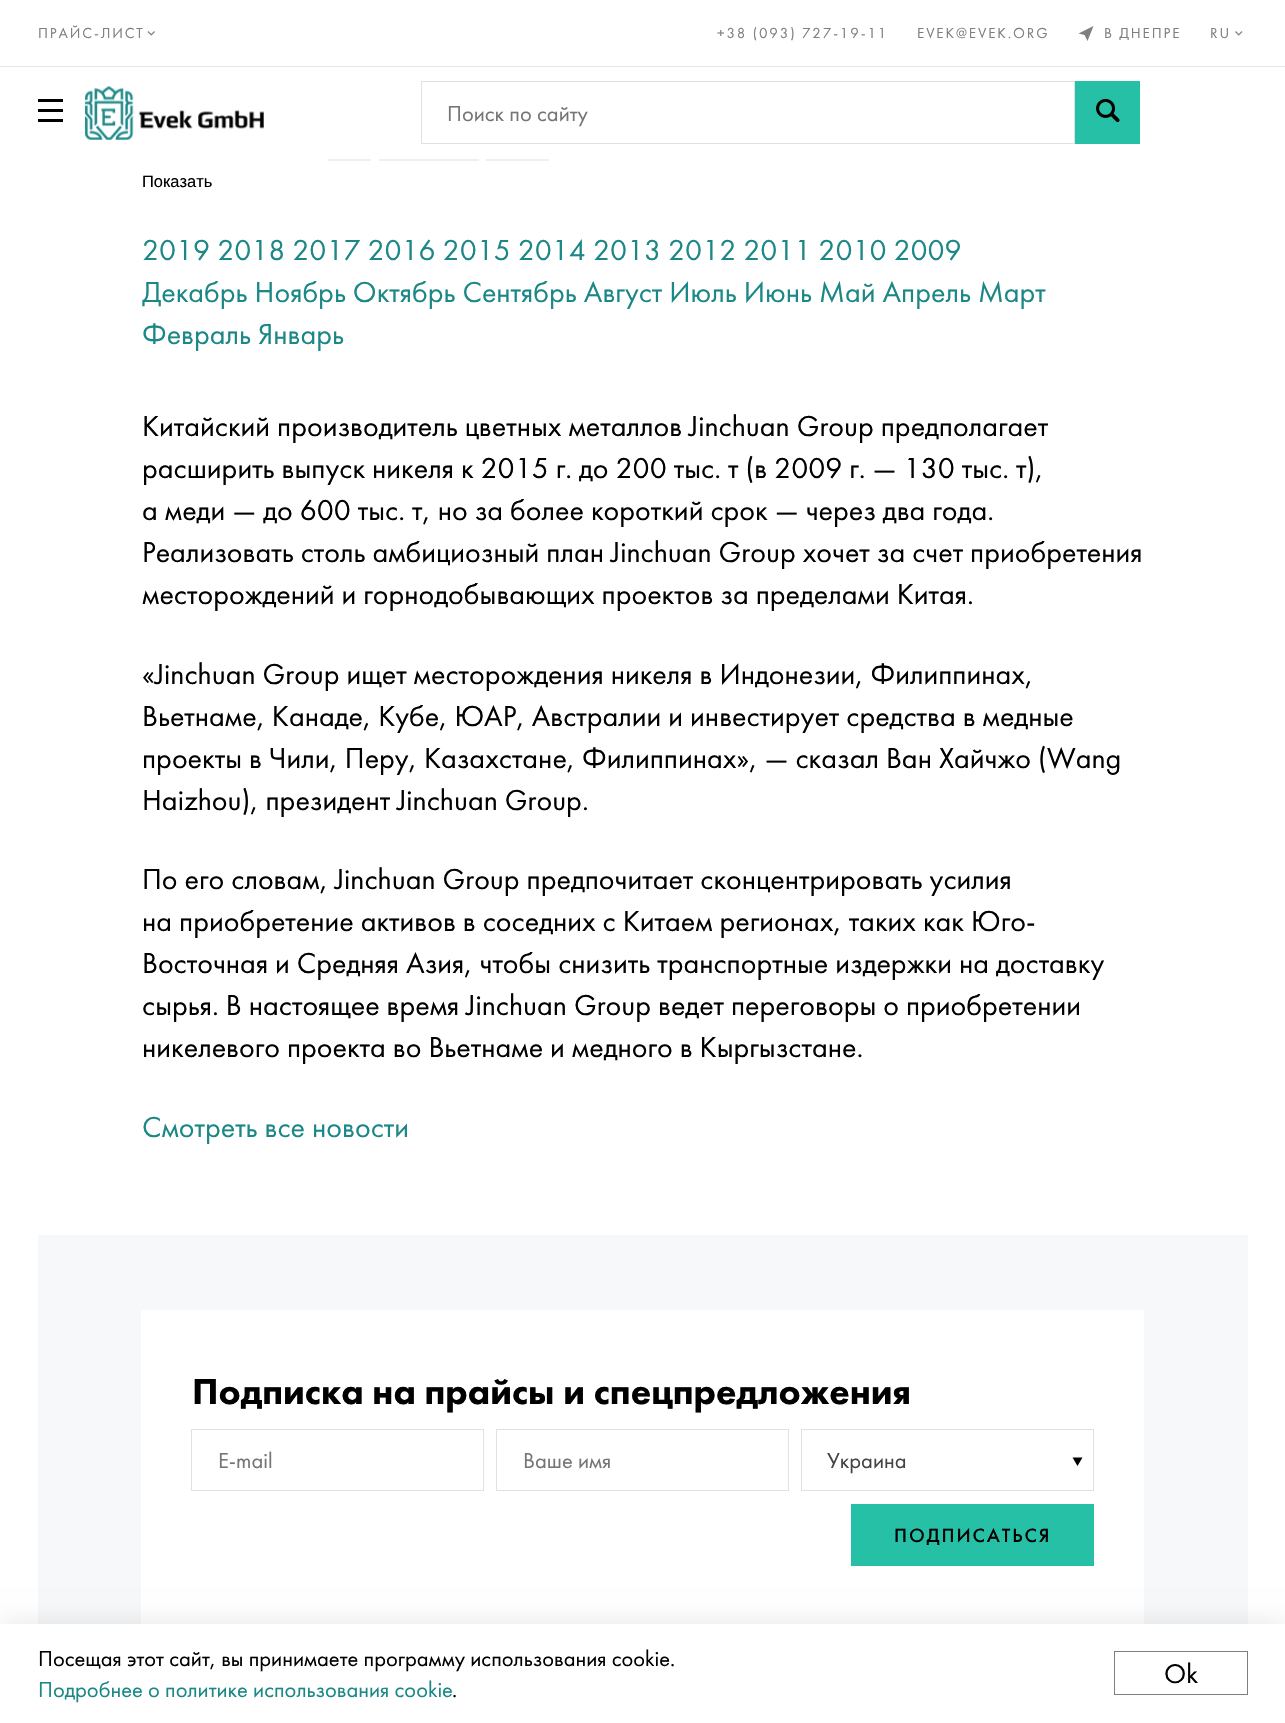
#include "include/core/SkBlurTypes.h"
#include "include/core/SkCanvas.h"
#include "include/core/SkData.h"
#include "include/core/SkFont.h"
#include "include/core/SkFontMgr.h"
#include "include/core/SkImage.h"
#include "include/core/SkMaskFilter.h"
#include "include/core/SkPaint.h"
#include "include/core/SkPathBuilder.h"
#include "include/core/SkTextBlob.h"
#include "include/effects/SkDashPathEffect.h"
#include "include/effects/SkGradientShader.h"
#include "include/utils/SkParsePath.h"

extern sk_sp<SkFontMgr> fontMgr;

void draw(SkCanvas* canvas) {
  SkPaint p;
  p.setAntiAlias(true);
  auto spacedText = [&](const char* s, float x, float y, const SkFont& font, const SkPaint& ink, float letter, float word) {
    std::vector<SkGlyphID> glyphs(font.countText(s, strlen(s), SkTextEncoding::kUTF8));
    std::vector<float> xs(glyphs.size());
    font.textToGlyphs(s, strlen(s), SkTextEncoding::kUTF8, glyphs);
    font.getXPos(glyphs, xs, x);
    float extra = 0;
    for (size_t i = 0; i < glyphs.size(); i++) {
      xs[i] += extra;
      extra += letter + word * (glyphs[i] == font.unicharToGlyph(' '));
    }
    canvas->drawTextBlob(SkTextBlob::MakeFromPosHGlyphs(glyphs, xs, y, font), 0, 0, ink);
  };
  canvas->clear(SK_ColorWHITE);
  canvas->drawImageRect(SkImages::DeferredFromEncodedData(SkData::MakeFromFileName("images/1.png")), SkRect::MakeLTRB(147, 31, 155, 36), SkSamplingOptions());
  p.setColor(SkColorSetRGB(127, 127, 127));
  canvas->drawPath(SkPathBuilder().moveTo(1093.5f, 26).lineTo(1087.5f, 41).lineTo(1084.5f, 35).lineTo(1078.5f, 33.5f).close().detach(), p);
  canvas->drawImageRect(SkImages::DeferredFromEncodedData(SkData::MakeFromFileName("images/2.png")), SkRect::MakeLTRB(1235, 31, 1243, 36), SkSamplingOptions());
  p.setColor(SkColorSetRGB(229, 229, 229));
  canvas->drawRect(SkRect::MakeLTRB(0, 66, 1285, 67), p);
  p.setColor(SK_ColorBLACK);
  canvas->drawRect(SkRect::MakeLTRB(38, 99, 63, 102), p);
  canvas->drawRect(SkRect::MakeLTRB(38, 109, 63, 112), p);
  canvas->drawRect(SkRect::MakeLTRB(38, 119, 63, 122), p);
  canvas->drawImageRect(SkImages::DeferredFromEncodedData(SkData::MakeFromFileName("images/3.png")), SkRect::MakeLTRB(85, 86, 264, 140), SkSamplingOptions());
  p.setStyle(SkPaint::kStroke_Style);
  p.setStrokeWidth(1);
  p.setColor(SkColorSetRGB(224, 225, 226));
  canvas->drawRect(SkRect::MakeLTRB(421.5f, 81.5f, 1074.5f, 143.5f), p);
  p.setStyle(SkPaint::kFill_Style);
  p.setColor(SkColorSetRGB(37, 192, 165));
  canvas->drawRect(SkRect::MakeLTRB(1075, 81, 1140, 144), p);
  canvas->drawImageRect(SkImages::DeferredFromEncodedData(SkData::MakeFromFileName("images/4.png")), SkRect::MakeLTRB(1096, 98, 1120, 123), SkSamplingOptions());
  p.setColor(SkColorSetRGB(239, 239, 239));
  canvas->drawRect(SkRect::MakeLTRB(328, 159, 371, 161), p);
  canvas->drawRect(SkRect::MakeLTRB(379, 159, 479, 161), p);
  canvas->drawRect(SkRect::MakeLTRB(486, 159, 549, 161), p);
  p.setColor(SkColorSetRGB(247, 248, 249));
  canvas->drawRect(SkRect::MakeLTRB(38, 1235, 1248, 1624), p);
  p.setColor(SK_ColorWHITE);
  canvas->drawRect(SkRect::MakeLTRB(141, 1310, 1144, 1624), p);
  p.setStyle(SkPaint::kStroke_Style);
  p.setColor(SkColorSetRGB(224, 225, 226));
  canvas->drawRect(SkRect::MakeLTRB(191.5f, 1429.5f, 483.5f, 1490.5f), p);
  canvas->drawRect(SkRect::MakeLTRB(496.5f, 1429.5f, 788.5f, 1490.5f), p);
  canvas->drawRect(SkRect::MakeLTRB(801.5f, 1429.5f, 1093.5f, 1490.5f), p);
  p.setStyle(SkPaint::kFill_Style);
  p.setColor(SK_ColorBLACK);
  canvas->drawPath(SkPathBuilder().moveTo(1072.5f, 1457.5f).lineTo(1082.5f, 1457.5f).lineTo(1077.5f, 1466).close().detach(), p);
  p.setColor(SkColorSetRGB(37, 192, 165));
  canvas->drawRect(SkRect::MakeLTRB(851, 1504, 1094, 1566), p);
  p.setColor(SkColorSetARGB(26, 0, 0, 0));
  p.setMaskFilter(SkMaskFilter::MakeBlur(kNormal_SkBlurStyle, 12.5f));
  canvas->drawRect(SkRect::MakeLTRB(0, 1624, 1285, 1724), p);
  p.setMaskFilter(nullptr);
  p.setColor(SK_ColorWHITE);
  canvas->drawRect(SkRect::MakeLTRB(0, 1624, 1285, 1723), p);
  p.setStyle(SkPaint::kStroke_Style);
  p.setColor(SkColorSetRGB(127, 127, 127));
  canvas->drawRect(SkRect::MakeLTRB(1114.5f, 1651.5f, 1247.5f, 1694.5f), p);
  SkFont font1(fontMgr->matchFamilyStyle("Futura PT", SkFontStyle::Normal()), 15);
  font1.setSubpixel(true);
  p.setStyle(SkPaint::kFill_Style);
  spacedText("ПРАЙС-ЛИСТ", 38, 38, font1, p, 1.9f, 0);
  spacedText("+38 (093) 727-19-11", 717, 38, font1, p, 1.9f, 0);
  spacedText("EVEK@EVEK.ORG", 917, 38, font1, p, 1.9f, 0);
  spacedText("В ДНЕПРЕ", 1104, 38, font1, p, 1.9f, 0);
  spacedText("RU", 1210, 38, font1, p, 1.9f, 0);
  SkFont font2(fontMgr->matchFamilyStyle("Futura PT", SkFontStyle::Normal()), 22.5f);
  font2.setSubpixel(true);
  p.setColor(SkColorSetRGB(117, 117, 117));
  canvas->drawString("Поиск по сайту", 447, 121, font2, p);
  SkFont font3(fontMgr->matchFamilyStyle("Liberation Sans", SkFontStyle::Normal()), 16.5f);
  font3.setSubpixel(true);
  p.setColor(SK_ColorBLACK);
  canvas->drawString("Показать", 142, 187, font3, p);
  SkFont font4(fontMgr->matchFamilyStyle("Futura PT", SkFontStyle::Normal()), 30);
  font4.setSubpixel(true);
  p.setColor(SkColorSetRGB(27, 135, 134));
  canvas->drawString("2019 2018 2017 2016 2015 2014 2013 2012 2011 2010 2009", 142, 260, font4, p);
  canvas->drawString("Декабрь Ноябрь Октябрь Сентябрь Август Июль Июнь Май Апрель Март", 142, 302, font4, p);
  canvas->drawString("Февраль Январь", 142, 344, font4, p);
  p.setColor(SK_ColorBLACK);
  canvas->drawString("Китайский производитель цветных металлов Jinchuan Group предполагает", 142, 436, font4, p);
  canvas->drawString("расширить выпуск никеля к 2015 г. до 200 тыс. т (в 2009 г. — 130 тыс. т),", 142, 478, font4, p);
  canvas->drawString("а меди — до 600 тыс. т, но за более короткий срок — через два года.", 142, 520, font4, p);
  canvas->drawString("Реализовать столь амбициозный план Jinchuan Group хочет за счет приобретения", 142, 562, font4, p);
  canvas->drawString("месторождений и горнодобывающих проектов за пределами Китая.", 142, 604, font4, p);
  canvas->drawString("«Jinchuan Group ищет месторождения никеля в Индонезии, Филиппинах,", 142, 684, font4, p);
  canvas->drawString("Вьетнаме, Канаде, Кубе, ЮАР, Австралии и инвестирует средства в медные", 142, 726, font4, p);
  canvas->drawString("проекты в Чили, Перу, Казахстане, Филиппинах», — сказал Ван Хайчжо (Wang", 142, 768, font4, p);
  canvas->drawString("Haizhou), президент Jinchuan Group.", 142, 810, font4, p);
  canvas->drawString("По его словам, Jinchuan Group предпочитает сконцентрировать усилия", 142, 889, font4, p);
  canvas->drawString("на приобретение активов в соседних с Китаем регионах, таких как Юго-", 142, 931, font4, p);
  canvas->drawString("Восточная и Средняя Азия, чтобы снизить транспортные издержки на доставку", 142, 973, font4, p);
  canvas->drawString("сырья. В настоящее время Jinchuan Group ведет переговоры о приобретении", 142, 1015, font4, p);
  canvas->drawString("никелевого проекта во Вьетнаме и медного в Кыргызстане.", 142, 1057, font4, p);
  p.setColor(SkColorSetRGB(27, 135, 134));
  canvas->drawString("Смотреть все новости", 142, 1137, font4, p);
  SkFont font5(fontMgr->matchFamilyStyle("Futura PT", SkFontStyle(900, SkFontStyle::kNormal_Width, SkFontStyle::kUpright_Slant)), 37.5f);
  font5.setSubpixel(true);
  p.setColor(SK_ColorBLACK);
  canvas->drawString("Подписка на прайсы и спецпредложения", 192, 1404, font5, p);
  p.setColor(SkColorSetRGB(117, 117, 117));
  canvas->drawString("E-mail", 218, 1468, font2, p);
  canvas->drawString("Ваше имя", 523, 1468, font2, p);
  p.setColor(SkColorSetRGB(68, 68, 68));
  canvas->drawString("Украина", 827, 1468, font2, p);
  SkFont font6(fontMgr->matchFamilyStyle("Futura PT", SkFontStyle(500, SkFontStyle::kNormal_Width, SkFontStyle::kUpright_Slant)), 20);
  font6.setSubpixel(true);
  p.setColor(SK_ColorBLACK);
  spacedText("ПОДПИСАТЬСЯ", 894, 1542, font6, p, 1.9f, 0);
  canvas->drawString("Посещая этот сайт, вы принимаете программу использования cookie.", 38, 1666, font2, p);
  p.setColor(SkColorSetRGB(27, 135, 134));
  canvas->drawString("Подробнее о политике использования cookie", 38, 1697, font2, p);
  p.setColor(SK_ColorBLACK);
  canvas->drawString(".", 452, 1697, font2, p);
  SkFont font7(fontMgr->matchFamilyStyle("Futura PT", SkFontStyle::Normal()), 28);
  font7.setSubpixel(true);
  canvas->drawString("Ok", 1164, 1683, font7, p);
}
